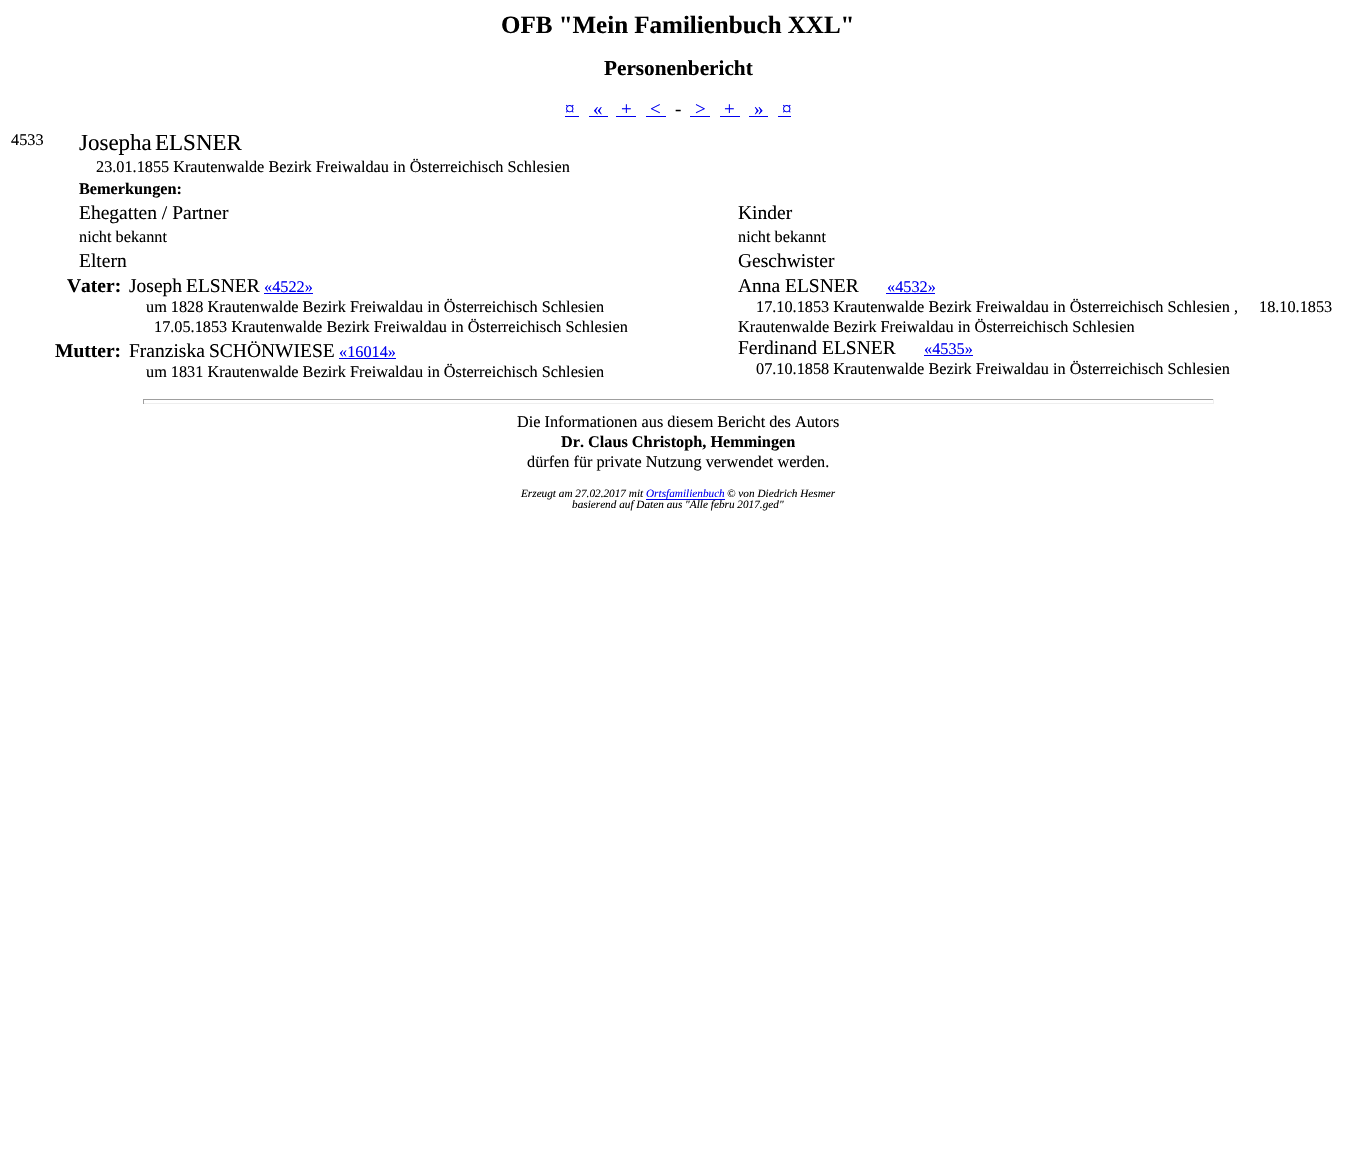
#include "include/core/SkBlurTypes.h"
#include "include/core/SkCanvas.h"
#include "include/core/SkData.h"
#include "include/core/SkFont.h"
#include "include/core/SkFontMgr.h"
#include "include/core/SkImage.h"
#include "include/core/SkMaskFilter.h"
#include "include/core/SkPaint.h"
#include "include/core/SkPathBuilder.h"
#include "include/core/SkTextBlob.h"
#include "include/effects/SkDashPathEffect.h"
#include "include/effects/SkGradientShader.h"
#include "include/utils/SkParsePath.h"

extern sk_sp<SkFontMgr> fontMgr;

void draw(SkCanvas* canvas) {
  SkPaint p;
  p.setAntiAlias(true);
  canvas->clear(SK_ColorWHITE);
  p.setColor(SkColorSetRGB(0, 0, 238));
  canvas->drawRect(SkRect::MakeLTRB(565, 116, 579, 117), p);
  canvas->drawRect(SkRect::MakeLTRB(589, 116, 608, 117), p);
  canvas->drawRect(SkRect::MakeLTRB(616, 116, 636, 117), p);
  canvas->drawRect(SkRect::MakeLTRB(646, 116, 666, 117), p);
  canvas->drawRect(SkRect::MakeLTRB(690, 116, 710, 117), p);
  canvas->drawRect(SkRect::MakeLTRB(720, 116, 740, 117), p);
  canvas->drawRect(SkRect::MakeLTRB(749, 116, 768, 117), p);
  canvas->drawRect(SkRect::MakeLTRB(778, 116, 791, 117), p);
  canvas->drawRect(SkRect::MakeLTRB(264, 293, 313, 294), p);
  canvas->drawRect(SkRect::MakeLTRB(886, 293, 935, 294), p);
  canvas->drawRect(SkRect::MakeLTRB(924, 355, 973, 356), p);
  canvas->drawRect(SkRect::MakeLTRB(339, 358, 396, 359), p);
  p.setColor(SkColorSetRGB(159, 159, 159));
  canvas->drawRect(SkRect::MakeLTRB(143, 399, 1214, 400), p);
  p.setColor(SkColorSetRGB(238, 238, 238));
  canvas->drawRect(SkRect::MakeLTRB(1213, 399, 1214, 404), p);
  canvas->drawRect(SkRect::MakeLTRB(143, 403, 1214, 404), p);
  p.setColor(SkColorSetRGB(159, 159, 159));
  canvas->drawRect(SkRect::MakeLTRB(143, 399, 144, 404), p);
  p.setColor(SkColorSetRGB(0, 0, 238));
  canvas->drawRect(SkRect::MakeLTRB(646, 499, 725, 500), p);
  SkFont font1(fontMgr->matchFamilyStyle("Liberation Serif", SkFontStyle::Bold()), 25);
  font1.setSubpixel(true);
  p.setColor(SK_ColorBLACK);
  canvas->drawString("OFB \"Mein Familienbuch XXL\"", 501, 33, font1, p);
  SkFont font2(fontMgr->matchFamilyStyle("Liberation Serif", SkFontStyle::Bold()), 21.25f);
  font2.setSubpixel(true);
  canvas->drawString("Personenbericht", 604, 75, font2, p);
  SkFont font3(fontMgr->matchFamilyStyle("Liberation Serif", SkFontStyle::Normal()), 19);
  font3.setSubpixel(true);
  p.setColor(SkColorSetRGB(0, 0, 238));
  canvas->drawString("¤", 565, 115, font3, p);
  canvas->drawString("«", 593, 115, font3, p);
  canvas->drawString("+", 621, 115, font3, p);
  canvas->drawString("<", 650, 115, font3, p);
  p.setColor(SK_ColorBLACK);
  canvas->drawString("-", 675, 115, font3, p);
  p.setColor(SkColorSetRGB(0, 0, 238));
  canvas->drawString(">", 695, 115, font3, p);
  canvas->drawString("+", 724, 115, font3, p);
  canvas->drawString("»", 754, 115, font3, p);
  canvas->drawString("¤", 782, 115, font3, p);
  SkFont font4(fontMgr->matchFamilyStyle("Liberation Serif", SkFontStyle::Normal()), 16.25f);
  font4.setSubpixel(true);
  p.setColor(SK_ColorBLACK);
  canvas->drawString("4533", 11, 145, font4, p);
  SkFont font5(fontMgr->matchFamilyStyle("Liberation Serif", SkFontStyle::Normal()), 23);
  font5.setSubpixel(true);
  canvas->drawString("Josepha", 79, 150, font5, p);
  canvas->drawString("ELSNER", 155, 150, font5, p);
  canvas->drawString("23.01.1855 Krautenwalde Bezirk Freiwaldau in Österreichisch Schlesien", 96, 172, font4, p);
  SkFont font6(fontMgr->matchFamilyStyle("Liberation Serif", SkFontStyle::Bold()), 16.25f);
  font6.setSubpixel(true);
  canvas->drawString("Bemerkungen:", 79, 194, font6, p);
  SkFont font7(fontMgr->matchFamilyStyle("Liberation Serif", SkFontStyle::Normal()), 19.5f);
  font7.setSubpixel(true);
  canvas->drawString("Ehegatten / Partner", 79, 219, font7, p);
  canvas->drawString("Kinder", 738, 219, font7, p);
  canvas->drawString("nicht bekannt", 79, 242, font4, p);
  canvas->drawString("nicht bekannt", 738, 242, font4, p);
  canvas->drawString("Eltern", 79, 267, font7, p);
  canvas->drawString("Geschwister", 738, 267, font7, p);
  SkFont font8(fontMgr->matchFamilyStyle("Liberation Serif", SkFontStyle::Bold()), 19.5f);
  font8.setSubpixel(true);
  canvas->drawString("Vater:", 67, 292, font8, p);
  canvas->drawString("Joseph", 129, 292, font7, p);
  canvas->drawString("ELSNER", 186, 292, font7, p);
  p.setColor(SkColorSetRGB(0, 0, 238));
  canvas->drawString("«4522»", 264, 292, font4, p);
  p.setColor(SK_ColorBLACK);
  canvas->drawString("um 1828 Krautenwalde Bezirk Freiwaldau in Österreichisch Schlesien", 146, 312, font4, p);
  canvas->drawString("17.05.1853 Krautenwalde Bezirk Freiwaldau in Österreichisch Schlesien", 154, 332, font4, p);
  canvas->drawString("Anna", 738, 292, font7, p);
  canvas->drawString("ELSNER", 785, 292, font7, p);
  p.setColor(SkColorSetRGB(0, 0, 238));
  canvas->drawString("«4532»", 887, 292, font4, p);
  p.setColor(SK_ColorBLACK);
  canvas->drawString("17.10.1853 Krautenwalde Bezirk Freiwaldau in Österreichisch Schlesien ,", 756, 312, font4, p);
  canvas->drawString("18.10.1853", 1259, 312, font4, p);
  canvas->drawString("Krautenwalde Bezirk Freiwaldau in Österreichisch Schlesien", 738, 332, font4, p);
  canvas->drawString("Ferdinand", 738, 354, font7, p);
  canvas->drawString("ELSNER", 822, 354, font7, p);
  p.setColor(SkColorSetRGB(0, 0, 238));
  canvas->drawString("«4535»", 924, 354, font4, p);
  p.setColor(SK_ColorBLACK);
  canvas->drawString("07.10.1858 Krautenwalde Bezirk Freiwaldau in Österreichisch Schlesien", 756, 374, font4, p);
  canvas->drawString("Mutter:", 55, 357, font8, p);
  canvas->drawString("Franziska", 129, 357, font7, p);
  canvas->drawString("SCHÖNWIESE", 209, 357, font7, p);
  p.setColor(SkColorSetRGB(0, 0, 238));
  canvas->drawString("«16014»", 339, 357, font4, p);
  p.setColor(SK_ColorBLACK);
  canvas->drawString("um 1831 Krautenwalde Bezirk Freiwaldau in Österreichisch Schlesien", 146, 377, font4, p);
  canvas->drawString("Die Informationen aus diesem Bericht des Autors", 517, 427, font4, p);
  canvas->drawString("Dr. Claus Christoph, Hemmingen", 561, 447, font6, p);
  canvas->drawString("dürfen für private Nutzung verwendet werden.", 527, 467, font4, p);
  SkFont font9(fontMgr->matchFamilyStyle("Liberation Serif", SkFontStyle::Italic()), 11.25f);
  font9.setSubpixel(true);
  canvas->drawString("Erzeugt am 27.02.2017 mit", 521, 497, font9, p);
  p.setColor(SkColorSetRGB(0, 0, 238));
  canvas->drawString("Ortsfamilienbuch", 646, 497, font9, p);
  p.setColor(SK_ColorBLACK);
  canvas->drawString("© von Diedrich Hesmer", 727, 497, font9, p);
  canvas->drawString("basierend auf Daten aus \"Alle febru 2017.ged\"", 572, 508, font9, p);
}
